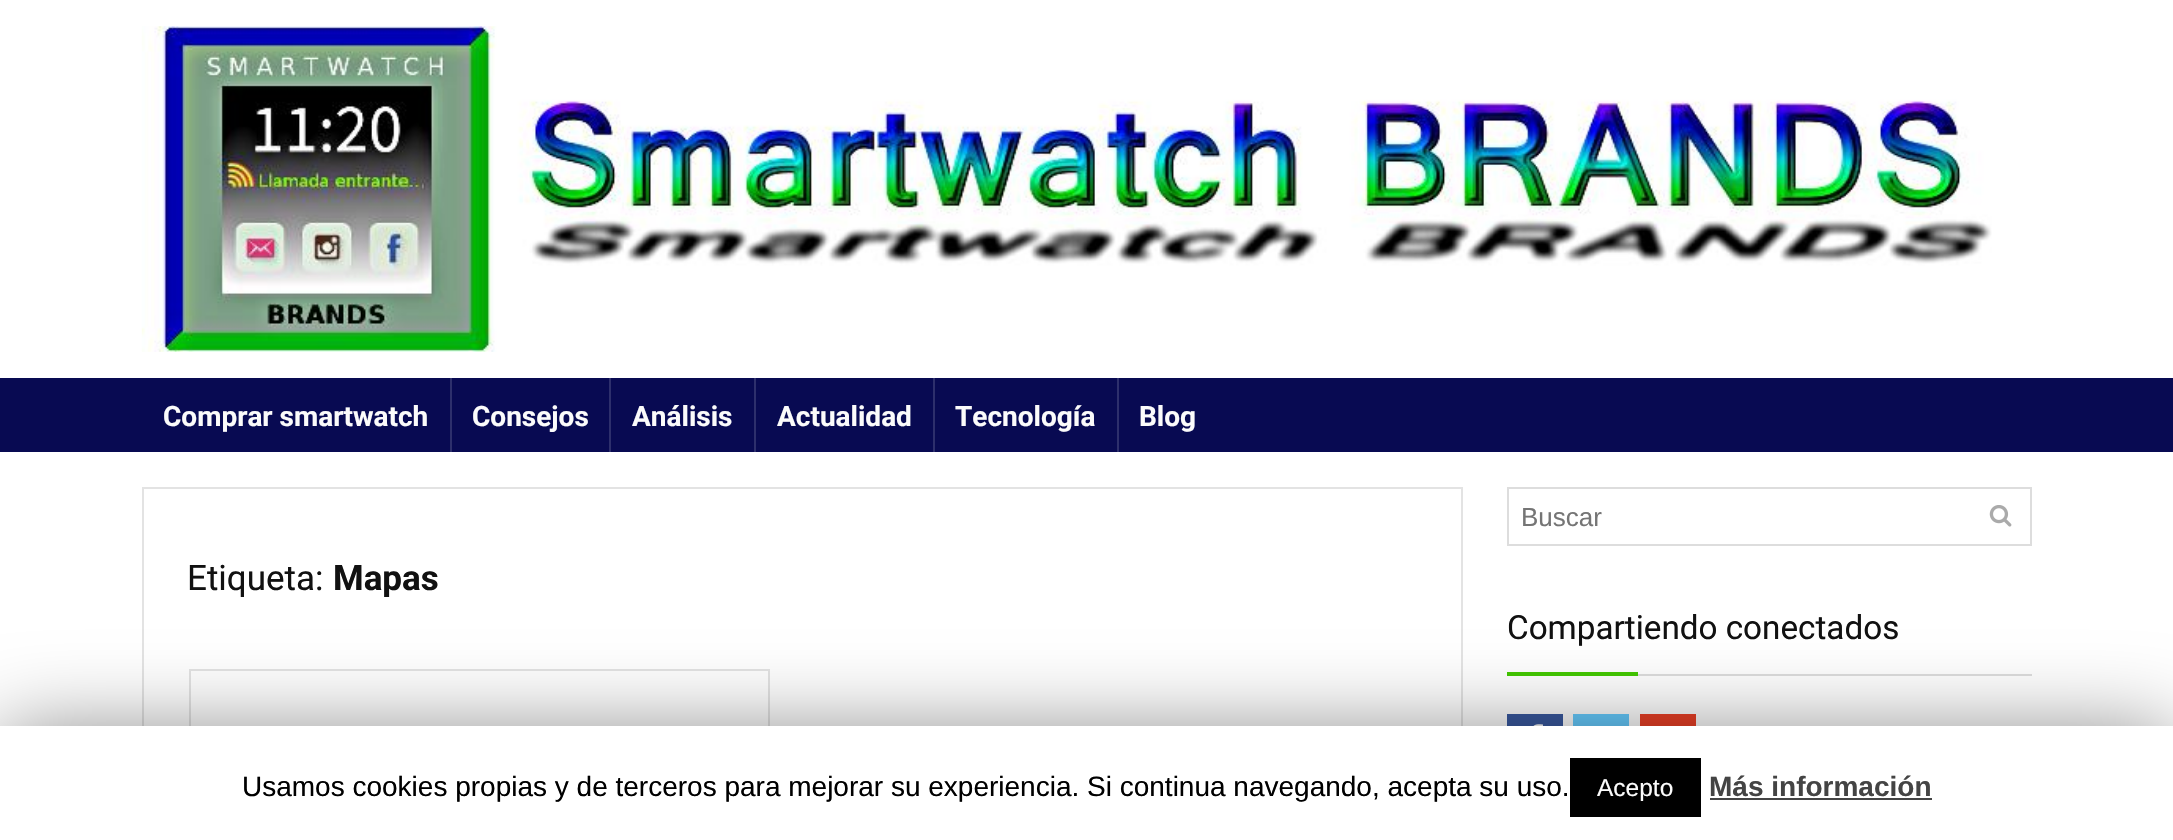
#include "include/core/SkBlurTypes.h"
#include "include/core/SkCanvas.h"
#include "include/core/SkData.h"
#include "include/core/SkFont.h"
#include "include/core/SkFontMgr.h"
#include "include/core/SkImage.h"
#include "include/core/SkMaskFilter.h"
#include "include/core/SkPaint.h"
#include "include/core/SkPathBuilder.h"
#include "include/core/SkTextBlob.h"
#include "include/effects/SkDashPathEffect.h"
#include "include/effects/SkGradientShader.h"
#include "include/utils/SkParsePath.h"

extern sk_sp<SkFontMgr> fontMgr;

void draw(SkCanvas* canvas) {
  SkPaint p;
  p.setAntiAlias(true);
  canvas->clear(SK_ColorWHITE);
  canvas->drawImageRect(SkImages::DeferredFromEncodedData(SkData::MakeFromFileName("images/1.png")), SkRect::MakeLTRB(141, 26, 1992, 352), SkSamplingOptions());
  p.setColor(SkColorSetRGB(8, 10, 82));
  canvas->drawRect(SkRect::MakeLTRB(0, 378, 2173, 452), p);
  p.setColor(SkColorSetRGB(45, 47, 108));
  canvas->drawRect(SkRect::MakeLTRB(450, 378, 452, 452), p);
  canvas->drawRect(SkRect::MakeLTRB(609, 378, 611, 452), p);
  canvas->drawRect(SkRect::MakeLTRB(754, 378, 756, 452), p);
  canvas->drawRect(SkRect::MakeLTRB(933, 378, 935, 452), p);
  canvas->drawRect(SkRect::MakeLTRB(1117, 378, 1119, 452), p);
  p.setStyle(SkPaint::kStroke_Style);
  p.setStrokeWidth(2);
  p.setColor(SkColorSetRGB(227, 227, 227));
  canvas->drawRect(SkRect::MakeLTRB(143, 488, 1462, 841), p);
  canvas->drawRect(SkRect::MakeLTRB(190, 670, 769, 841), p);
  p.setColor(SkColorSetRGB(221, 221, 221));
  canvas->drawRect(SkRect::MakeLTRB(1508, 488, 2031, 545), p);
  canvas->drawImageRect(SkImages::DeferredFromEncodedData(SkData::MakeFromFileName("images/2.png")), SkRect::MakeLTRB(1989, 505, 2012, 527), SkSamplingOptions());
  p.setStyle(SkPaint::kFill_Style);
  canvas->drawRect(SkRect::MakeLTRB(1638, 674, 2032, 676), p);
  p.setColor(SkColorSetRGB(67, 200, 1));
  canvas->drawRect(SkRect::MakeLTRB(1507, 672, 1638, 676), p);
  p.setColor(SkColorSetRGB(57, 89, 159));
  canvas->drawRect(SkRect::MakeLTRB(1507, 714, 1563, 726), p);
  canvas->drawImageRect(SkImages::DeferredFromEncodedData(SkData::MakeFromFileName("images/3.png")), SkRect::MakeLTRB(1533, 724, 1543, 726), SkSamplingOptions());
  p.setColor(SkColorSetRGB(102, 204, 255));
  canvas->drawRect(SkRect::MakeLTRB(1573, 714, 1629, 726), p);
  p.setColor(SkColorSetRGB(235, 64, 38));
  canvas->drawRect(SkRect::MakeLTRB(1640, 714, 1696, 726), p);
  p.setColor(SkColorSetARGB(128, 0, 0, 0));
  p.setMaskFilter(SkMaskFilter::MakeBlur(kNormal_SkBlurStyle, 44));
  canvas->drawRect(SkRect::MakeLTRB(0, 735, 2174, 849), p);
  p.setMaskFilter(nullptr);
  p.setColor(SK_ColorWHITE);
  canvas->drawRect(SkRect::MakeLTRB(0, 726, 2173, 840), p);
  p.setColor(SK_ColorBLACK);
  canvas->drawRect(SkRect::MakeLTRB(1570, 758, 1701, 817), p);
  p.setColor(SkColorSetRGB(68, 68, 68));
  canvas->drawRect(SkRect::MakeLTRB(1710, 798, 1932, 800), p);
  SkFont font1(fontMgr->matchFamilyStyle("Roboto", SkFontStyle::Bold()), 28);
  font1.setSubpixel(true);
  p.setColor(SkColorSetRGB(251, 251, 251));
  canvas->drawString("Comprar smartwatch", 163, 426, font1, p);
  canvas->drawString("Consejos", 472, 426, font1, p);
  canvas->drawString("Análisis", 632, 426, font1, p);
  canvas->drawString("Actualidad", 777, 426, font1, p);
  canvas->drawString("Tecnología", 955, 426, font1, p);
  canvas->drawString("Blog", 1139, 426, font1, p);
  SkFont font2(fontMgr->matchFamilyStyle("Roboto", SkFontStyle::Normal()), 35);
  font2.setSubpixel(true);
  p.setColor(SkColorSetRGB(17, 17, 17));
  canvas->drawString("Etiqueta:", 187, 590, font2, p);
  SkFont font3(fontMgr->matchFamilyStyle("Roboto", SkFontStyle::Bold()), 35);
  font3.setSubpixel(true);
  canvas->drawString("Mapas", 333, 590, font3, p);
  SkFont font4(fontMgr->matchFamilyStyle("Liberation Sans", SkFontStyle::Normal()), 26);
  font4.setSubpixel(true);
  p.setColor(SkColorSetRGB(117, 117, 117));
  canvas->drawString("Buscar", 1521, 526, font4, p);
  SkFont font5(fontMgr->matchFamilyStyle("Roboto", SkFontStyle::Normal()), 33.25f);
  font5.setSubpixel(true);
  p.setColor(SkColorSetRGB(17, 17, 17));
  canvas->drawString("Compartiendo conectados", 1507, 639, font5, p);
  SkFont font6(fontMgr->matchFamilyStyle("Liberation Sans", SkFontStyle::Normal()), 28);
  font6.setSubpixel(true);
  p.setColor(SK_ColorBLACK);
  canvas->drawString("Usamos cookies propias y de terceros para mejorar su experiencia. Si continua navegando, acepta su uso.", 242, 796, font6, p);
  SkFont font7(fontMgr->matchFamilyStyle("Liberation Sans", SkFontStyle::Normal()), 24.5f);
  font7.setSubpixel(true);
  p.setColor(SkColorSetRGB(251, 251, 251));
  canvas->drawString("Acepto", 1597, 796, font7, p);
  SkFont font8(fontMgr->matchFamilyStyle("Liberation Sans", SkFontStyle::Bold()), 28);
  font8.setSubpixel(true);
  p.setColor(SkColorSetRGB(68, 68, 68));
  canvas->drawString("Más información", 1709, 796, font8, p);
}
